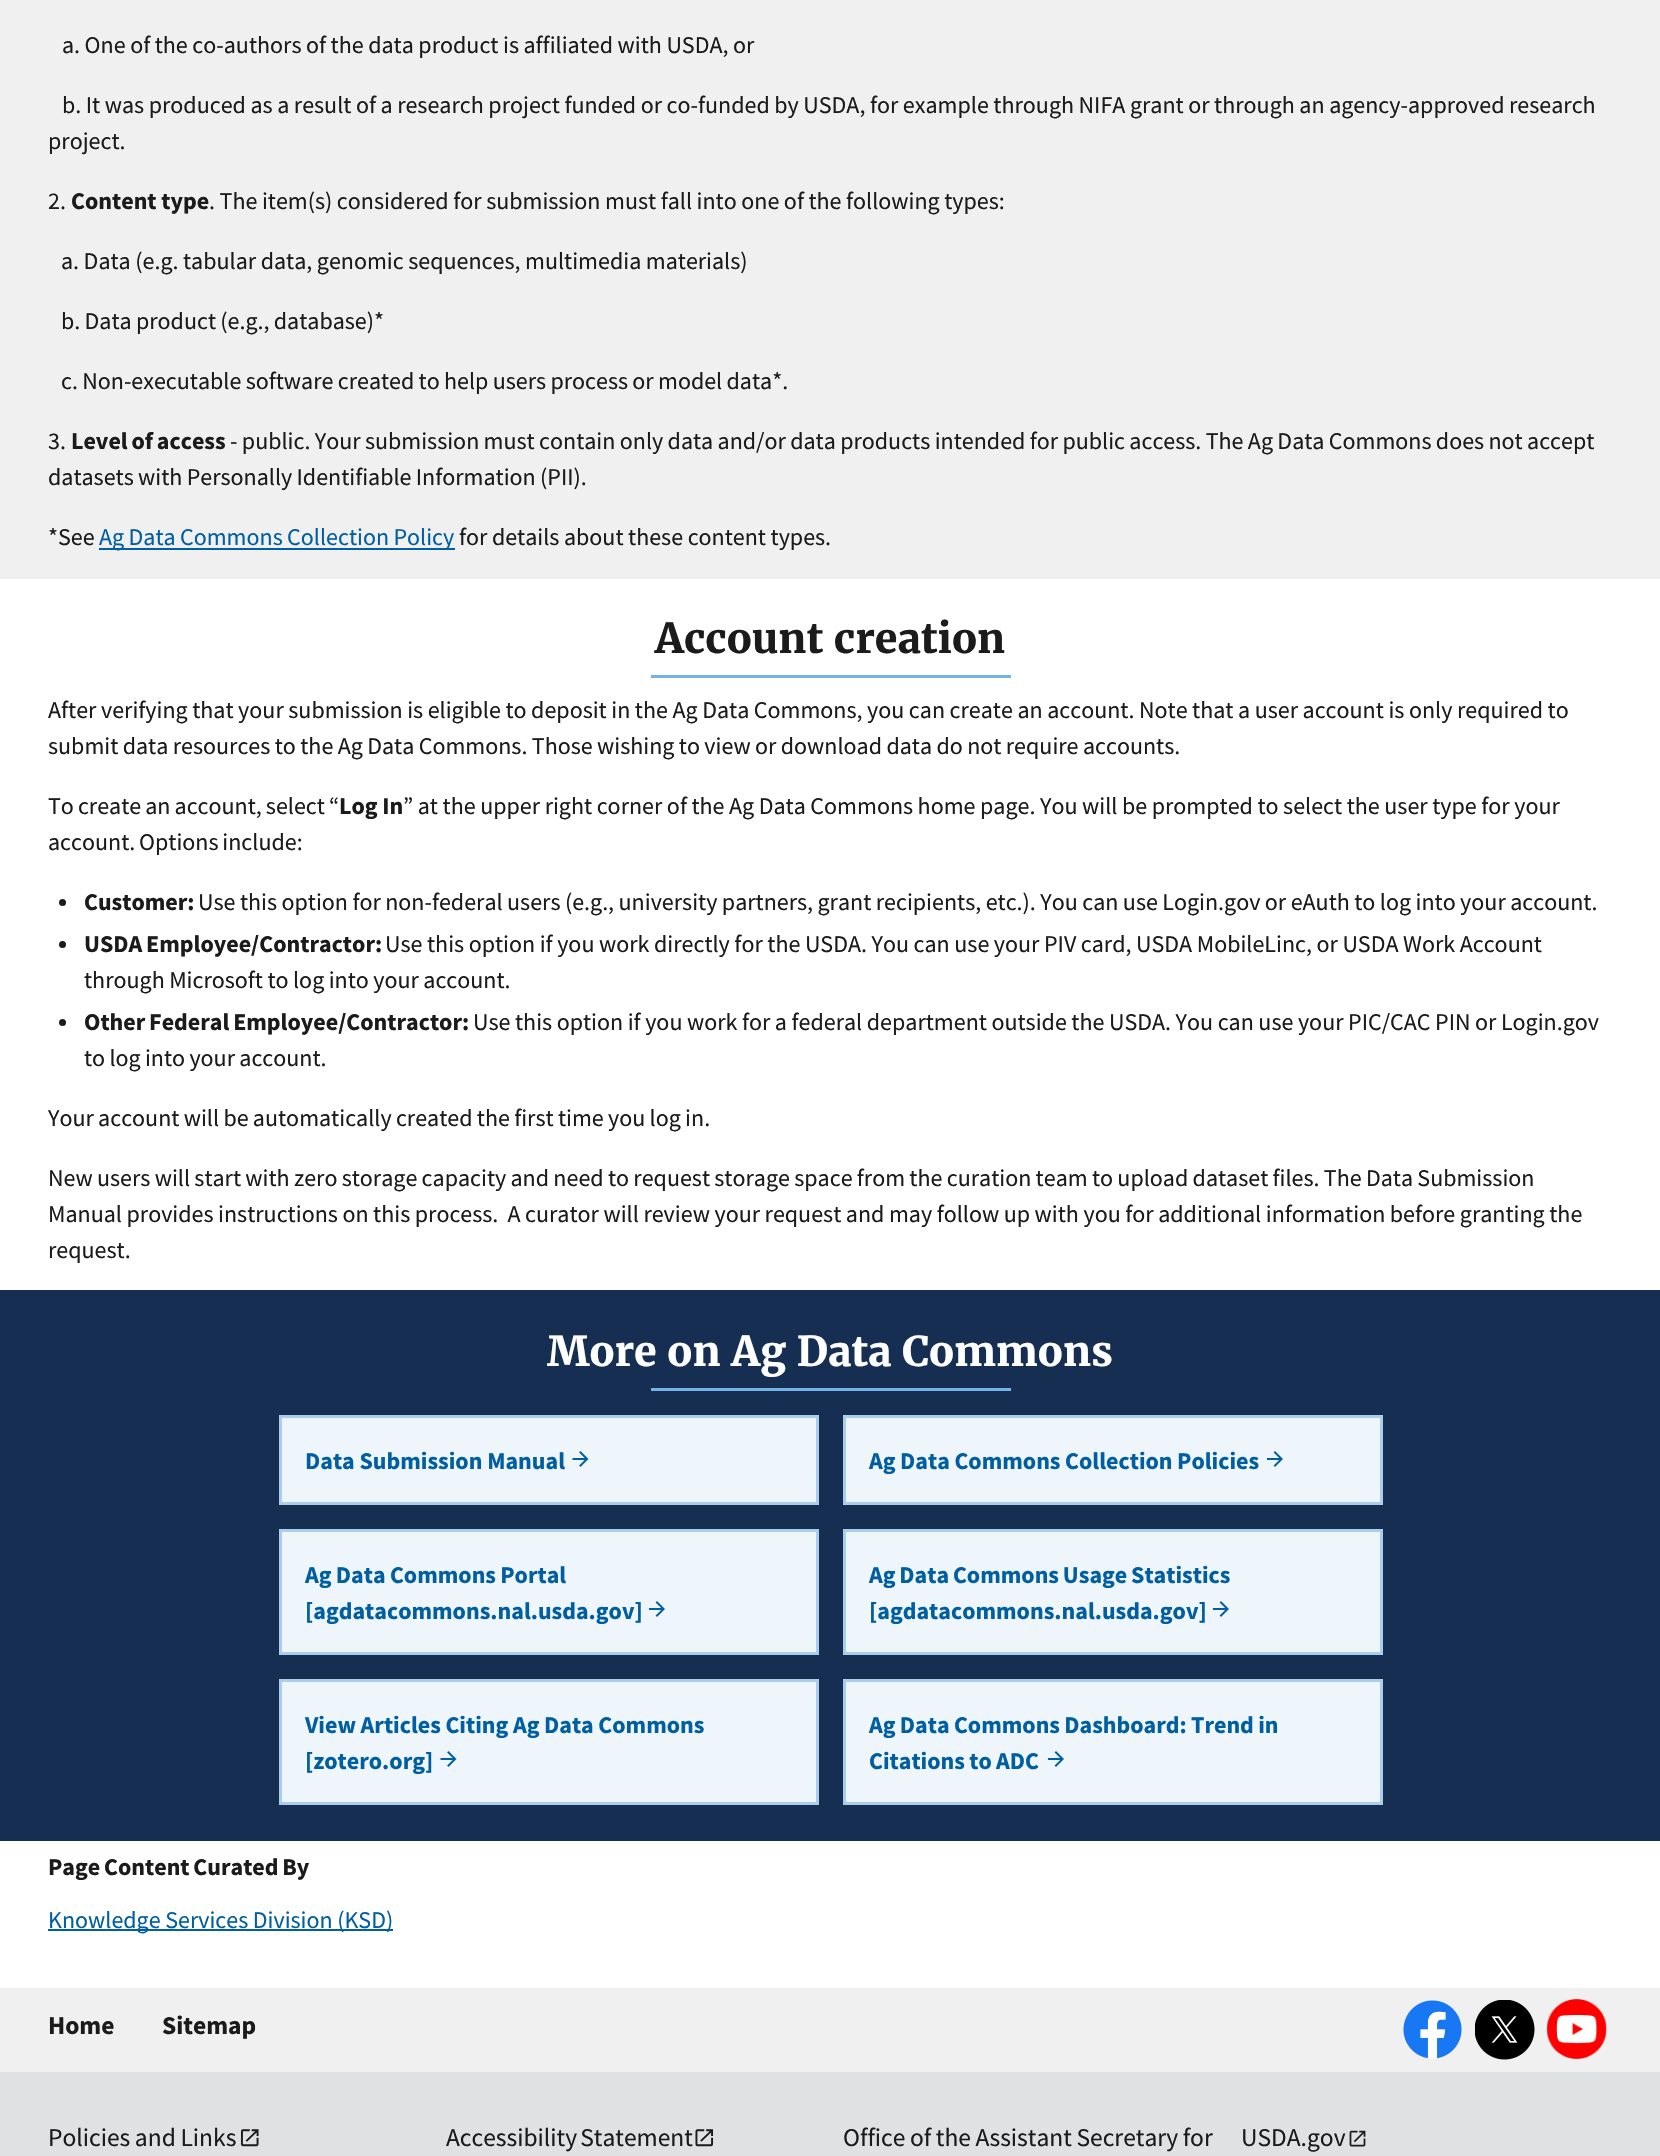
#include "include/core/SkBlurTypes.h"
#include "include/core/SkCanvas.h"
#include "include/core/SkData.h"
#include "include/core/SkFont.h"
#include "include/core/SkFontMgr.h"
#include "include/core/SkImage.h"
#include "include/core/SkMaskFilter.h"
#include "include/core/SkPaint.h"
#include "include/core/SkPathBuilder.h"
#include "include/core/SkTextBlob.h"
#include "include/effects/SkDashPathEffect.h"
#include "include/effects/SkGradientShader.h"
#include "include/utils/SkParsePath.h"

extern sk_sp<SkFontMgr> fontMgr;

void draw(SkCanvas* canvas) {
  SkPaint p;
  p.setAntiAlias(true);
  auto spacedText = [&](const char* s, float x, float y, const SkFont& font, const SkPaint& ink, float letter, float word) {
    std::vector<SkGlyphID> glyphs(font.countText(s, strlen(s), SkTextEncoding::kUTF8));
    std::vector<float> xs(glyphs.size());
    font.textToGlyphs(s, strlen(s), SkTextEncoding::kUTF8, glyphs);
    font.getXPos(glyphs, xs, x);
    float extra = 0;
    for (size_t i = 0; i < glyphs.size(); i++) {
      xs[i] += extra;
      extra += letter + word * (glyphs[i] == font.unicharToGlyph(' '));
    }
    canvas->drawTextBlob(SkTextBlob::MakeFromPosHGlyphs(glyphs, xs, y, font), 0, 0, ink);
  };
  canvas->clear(SK_ColorWHITE);
  p.setColor(SkColorSetRGB(240, 240, 240));
  canvas->drawRect(SkRect::MakeLTRB(0, 0, 1660, 579), p);
  p.setColor(SkColorSetRGB(0, 94, 162));
  canvas->drawRect(SkRect::MakeLTRB(99, 548, 455, 550), p);
  p.setColor(SkColorSetRGB(115, 179, 231));
  canvas->drawRect(SkRect::MakeLTRB(651, 675, 1011, 678), p);
  p.setColor(SkColorSetRGB(27, 27, 27));
  canvas->drawCircle(62.5f, 902.5f, 3.5f, p);
  canvas->drawCircle(62.5f, 944.5f, 3.5f, p);
  canvas->drawCircle(62.5f, 1022.5f, 3.5f, p);
  p.setColor(SkColorSetRGB(22, 46, 81));
  canvas->drawRect(SkRect::MakeLTRB(0, 1290, 1660, 1841), p);
  p.setColor(SkColorSetRGB(115, 179, 231));
  canvas->drawRect(SkRect::MakeLTRB(651, 1388, 1011, 1391), p);
  p.setColor(SkColorSetRGB(239, 246, 251));
  canvas->drawRect(SkRect::MakeLTRB(280.5f, 1416.5f, 817.5f, 1503.5f), p);
  p.setStyle(SkPaint::kStroke_Style);
  p.setStrokeWidth(3);
  p.setColor(SkColorSetRGB(170, 205, 236));
  canvas->drawRect(SkRect::MakeLTRB(280.5f, 1416.5f, 817.5f, 1503.5f), p);
  canvas->drawImageRect(SkImages::DeferredFromEncodedData(SkData::MakeFromFileName("images/1.png")), SkRect::MakeLTRB(572, 1451, 589, 1467), SkSamplingOptions());
  p.setStyle(SkPaint::kFill_Style);
  p.setColor(SkColorSetRGB(239, 246, 251));
  canvas->drawRect(SkRect::MakeLTRB(844.5f, 1416.5f, 1381.5f, 1503.5f), p);
  p.setStyle(SkPaint::kStroke_Style);
  p.setColor(SkColorSetRGB(170, 205, 236));
  canvas->drawRect(SkRect::MakeLTRB(844.5f, 1416.5f, 1381.5f, 1503.5f), p);
  canvas->drawImageRect(SkImages::DeferredFromEncodedData(SkData::MakeFromFileName("images/2.png")), SkRect::MakeLTRB(1267, 1451, 1283, 1467), SkSamplingOptions());
  p.setStyle(SkPaint::kFill_Style);
  p.setColor(SkColorSetRGB(239, 246, 251));
  canvas->drawRect(SkRect::MakeLTRB(280.5f, 1530.5f, 817.5f, 1653.5f), p);
  p.setStyle(SkPaint::kStroke_Style);
  p.setColor(SkColorSetRGB(170, 205, 236));
  canvas->drawRect(SkRect::MakeLTRB(280.5f, 1530.5f, 817.5f, 1653.5f), p);
  canvas->drawImageRect(SkImages::DeferredFromEncodedData(SkData::MakeFromFileName("images/2.png")), SkRect::MakeLTRB(649, 1601, 665, 1617), SkSamplingOptions());
  p.setStyle(SkPaint::kFill_Style);
  p.setColor(SkColorSetRGB(239, 246, 251));
  canvas->drawRect(SkRect::MakeLTRB(844.5f, 1530.5f, 1381.5f, 1653.5f), p);
  p.setStyle(SkPaint::kStroke_Style);
  p.setColor(SkColorSetRGB(170, 205, 236));
  canvas->drawRect(SkRect::MakeLTRB(844.5f, 1530.5f, 1381.5f, 1653.5f), p);
  canvas->drawImageRect(SkImages::DeferredFromEncodedData(SkData::MakeFromFileName("images/2.png")), SkRect::MakeLTRB(1213, 1601, 1229, 1617), SkSamplingOptions());
  p.setStyle(SkPaint::kFill_Style);
  p.setColor(SkColorSetRGB(239, 246, 251));
  canvas->drawRect(SkRect::MakeLTRB(280.5f, 1680.5f, 817.5f, 1803.5f), p);
  p.setStyle(SkPaint::kStroke_Style);
  p.setColor(SkColorSetRGB(170, 205, 236));
  canvas->drawRect(SkRect::MakeLTRB(280.5f, 1680.5f, 817.5f, 1803.5f), p);
  canvas->drawImageRect(SkImages::DeferredFromEncodedData(SkData::MakeFromFileName("images/1.png")), SkRect::MakeLTRB(440, 1751, 457, 1767), SkSamplingOptions());
  p.setStyle(SkPaint::kFill_Style);
  p.setColor(SkColorSetRGB(239, 246, 251));
  canvas->drawRect(SkRect::MakeLTRB(844.5f, 1680.5f, 1381.5f, 1803.5f), p);
  p.setStyle(SkPaint::kStroke_Style);
  p.setColor(SkColorSetRGB(170, 205, 236));
  canvas->drawRect(SkRect::MakeLTRB(844.5f, 1680.5f, 1381.5f, 1803.5f), p);
  canvas->drawImageRect(SkImages::DeferredFromEncodedData(SkData::MakeFromFileName("images/2.png")), SkRect::MakeLTRB(1048, 1751, 1064, 1767), SkSamplingOptions());
  p.setStyle(SkPaint::kFill_Style);
  p.setColor(SkColorSetRGB(0, 94, 162));
  canvas->drawRect(SkRect::MakeLTRB(48, 1929, 393, 1931), p);
  p.setColor(SkColorSetRGB(240, 240, 240));
  canvas->drawRect(SkRect::MakeLTRB(0, 1988, 1660, 2072), p);
  canvas->drawImageRect(SkImages::DeferredFromEncodedData(SkData::MakeFromFileName("images/3.png")), SkRect::MakeLTRB(1403, 2000, 1462, 2059), SkSamplingOptions());
  canvas->drawImageRect(SkImages::DeferredFromEncodedData(SkData::MakeFromFileName("images/4.png")), SkRect::MakeLTRB(1475, 2000, 1535, 2060), SkSamplingOptions());
  canvas->drawImageRect(SkImages::DeferredFromEncodedData(SkData::MakeFromFileName("images/5.png")), SkRect::MakeLTRB(1547, 1999, 1607, 2059), SkSamplingOptions());
  p.setColor(SkColorSetRGB(223, 225, 226));
  canvas->drawRect(SkRect::MakeLTRB(0, 2072, 1660, 2156), p);
  canvas->drawImageRect(SkImages::DeferredFromEncodedData(SkData::MakeFromFileName("images/6.png")), SkRect::MakeLTRB(240, 2129, 259, 2147), SkSamplingOptions());
  canvas->drawImageRect(SkImages::DeferredFromEncodedData(SkData::MakeFromFileName("images/7.png")), SkRect::MakeLTRB(695, 2129, 714, 2147), SkSamplingOptions());
  canvas->drawImageRect(SkImages::DeferredFromEncodedData(SkData::MakeFromFileName("images/8.png")), SkRect::MakeLTRB(1349, 2130, 1366, 2147), SkSamplingOptions());
  SkFont font1(fontMgr->matchFamilyStyle("Source Sans Pro", SkFontStyle::Normal()), 24);
  font1.setSubpixel(true);
  p.setColor(SkColorSetRGB(27, 27, 27));
  spacedText("a. One of the co-authors of the data product is affiliated with USDA, or", 62, 53, font1, p, 0, -0.25f);
  spacedText("b. It was produced as a result of a research project funded or co-funded by USDA, for example through NIFA grant or through an agency-approved research", 62, 113, font1, p, 0, -0.25f);
  canvas->drawString("project.", 48, 149, font1, p);
  canvas->drawString("2.", 48, 209, font1, p);
  SkFont font2(fontMgr->matchFamilyStyle("Source Sans Pro", SkFontStyle::Bold()), 24);
  font2.setSubpixel(true);
  canvas->drawString("Content type", 71, 209, font2, p);
  spacedText(". The item(s) considered for submission must fall into one of the following types:", 209, 209, font1, p, 0, -0.25f);
  spacedText("a. Data (e.g. tabular data, genomic sequences, multimedia materials)", 61, 269, font1, p, 0, -0.25f);
  spacedText("b. Data product (e.g., database)*", 61, 329, font1, p, 0, -0.5f);
  spacedText("c. Non-executable software created to help users process or model data*.", 61, 389, font1, p, 0, -0.5f);
  canvas->drawString("3.", 48, 449, font1, p);
  spacedText("Level of access", 71, 449, font2, p, 0, -1);
  spacedText("- public. Your submission must contain only data and/or data products intended for public access. The Ag Data Commons does not accept", 230, 449, font1, p, 0, -0.45f);
  spacedText("datasets with Personally Identifiable Information (PII).", 48, 485, font1, p, 0, -0.5f);
  canvas->drawString("*See", 48, 545, font1, p);
  p.setColor(SkColorSetRGB(0, 94, 162));
  spacedText("Ag Data Commons Collection Policy", 99, 545, font1, p, 0, -0.4f);
  p.setColor(SkColorSetRGB(27, 27, 27));
  spacedText("for details about these content types.", 459, 545, font1, p, 0, -0.25f);
  SkFont font3(fontMgr->matchFamilyStyle("Merriweather", SkFontStyle::Bold()), 41);
  font3.setSubpixel(true);
  canvas->drawString("Account creation", 655, 653, font3, p);
  spacedText("After verifying that your submission is eligible to deposit in the Ag Data Commons, you can create an account. Note that a user account is only required to", 48, 718, font1, p, 0, -0.25f);
  spacedText("submit data resources to the Ag Data Commons. Those wishing to view or download data do not require accounts.", 48, 754, font1, p, 0, -0.4f);
  spacedText("To create an account, select “", 48, 814, font1, p, 0, -0.75f);
  canvas->drawString("Log In", 339, 814, font2, p);
  spacedText("” at the upper right corner of the Ag Data Commons home page. You will be prompted to select the user type for your", 403, 814, font1, p, 0, -0.25f);
  spacedText("account. Options include:", 48, 850, font1, p, 0, -1);
  canvas->drawString("Customer:", 84, 910, font2, p);
  spacedText("Use this option for non-federal users (e.g., university partners, grant recipients, etc.). You can use Login.gov or eAuth to log into your account.", 198, 910, font1, p, 0, -0.35f);
  spacedText("USDA Employee/Contractor:", 84, 952, font2, p, 0, -1);
  spacedText("Use this option if you work directly for the USDA. You can use your PIV card, USDA MobileLinc, or USDA Work Account", 385, 952, font1, p, 0, -0.25f);
  spacedText("through Microsoft to log into your account.", 84, 988, font1, p, 0, -0.35f);
  spacedText("Other Federal Employee/Contractor:", 84, 1030, font2, p, 0, -1);
  spacedText("Use this option if you work for a federal department outside the USDA. You can use your PIC/CAC PIN or Login.gov", 473, 1030, font1, p, 0, -0.25f);
  spacedText("to log into your account.", 84, 1066, font1, p, 0, -0.5f);
  spacedText("Your account will be automatically created the first time you log in.", 48, 1126, font1, p, 0, -0.5f);
  spacedText("New users will start with zero storage capacity and need to request storage space from the curation team to upload dataset files. The Data Submission", 48, 1186, font1, p, 0, -0.5f);
  spacedText("Manual provides instructions on this process.  A curator will review your request and may follow up with you for additional information before granting the", 48, 1222, font1, p, 0, -0.25f);
  canvas->drawString("request.", 48, 1258, font1, p);
  p.setColor(SK_ColorWHITE);
  canvas->drawString("More on Ag Data Commons", 547, 1366, font3, p);
  p.setColor(SkColorSetRGB(0, 94, 162));
  canvas->drawString("Data Submission Manual", 305, 1469, font2, p);
  spacedText("Ag Data Commons Collection Policies", 869, 1469, font2, p, 0, -0.25f);
  spacedText("Ag Data Commons Portal", 305, 1583, font2, p, 0, -0.5f);
  canvas->drawString("[agdatacommons.nal.usda.gov]", 305, 1619, font2, p);
  spacedText("Ag Data Commons Usage Statistics", 869, 1583, font2, p, 0, -1);
  canvas->drawString("[agdatacommons.nal.usda.gov]", 869, 1619, font2, p);
  spacedText("View Articles Citing Ag Data Commons", 305, 1733, font2, p, 0, -0.25f);
  canvas->drawString("[zotero.org]", 305, 1769, font2, p);
  spacedText("Ag Data Commons Dashboard: Trend in", 869, 1733, font2, p, 0, -0.5f);
  spacedText("Citations to ADC", 869, 1769, font2, p, 0, -0.5f);
  p.setColor(SkColorSetRGB(27, 27, 27));
  spacedText("Page Content Curated By", 48, 1875, font2, p, 0, -1);
  p.setColor(SkColorSetRGB(0, 94, 162));
  spacedText("Knowledge Services Division (KSD)", 48, 1928, font1, p, 0, -0.25f);
  SkFont font4(fontMgr->matchFamilyStyle("Source Sans Pro", SkFontStyle::Bold()), 25.5f);
  font4.setSubpixel(true);
  p.setColor(SkColorSetRGB(27, 27, 27));
  canvas->drawString("Home", 48, 2034, font4, p);
  canvas->drawString("Sitemap", 162, 2034, font4, p);
  SkFont font5(fontMgr->matchFamilyStyle("Source Sans Pro", SkFontStyle::Normal()), 25.5f);
  font5.setSubpixel(true);
  spacedText("Policies and Links", 48, 2146, font5, p, 0, -0.5f);
  spacedText("Accessibility Statement", 446, 2146, font5, p, 0, -2);
  spacedText("Office of the Assistant Secretary for", 843, 2146, font5, p, 0, -0.5f);
  canvas->drawString("USDA.gov", 1241, 2146, font5, p);
}
